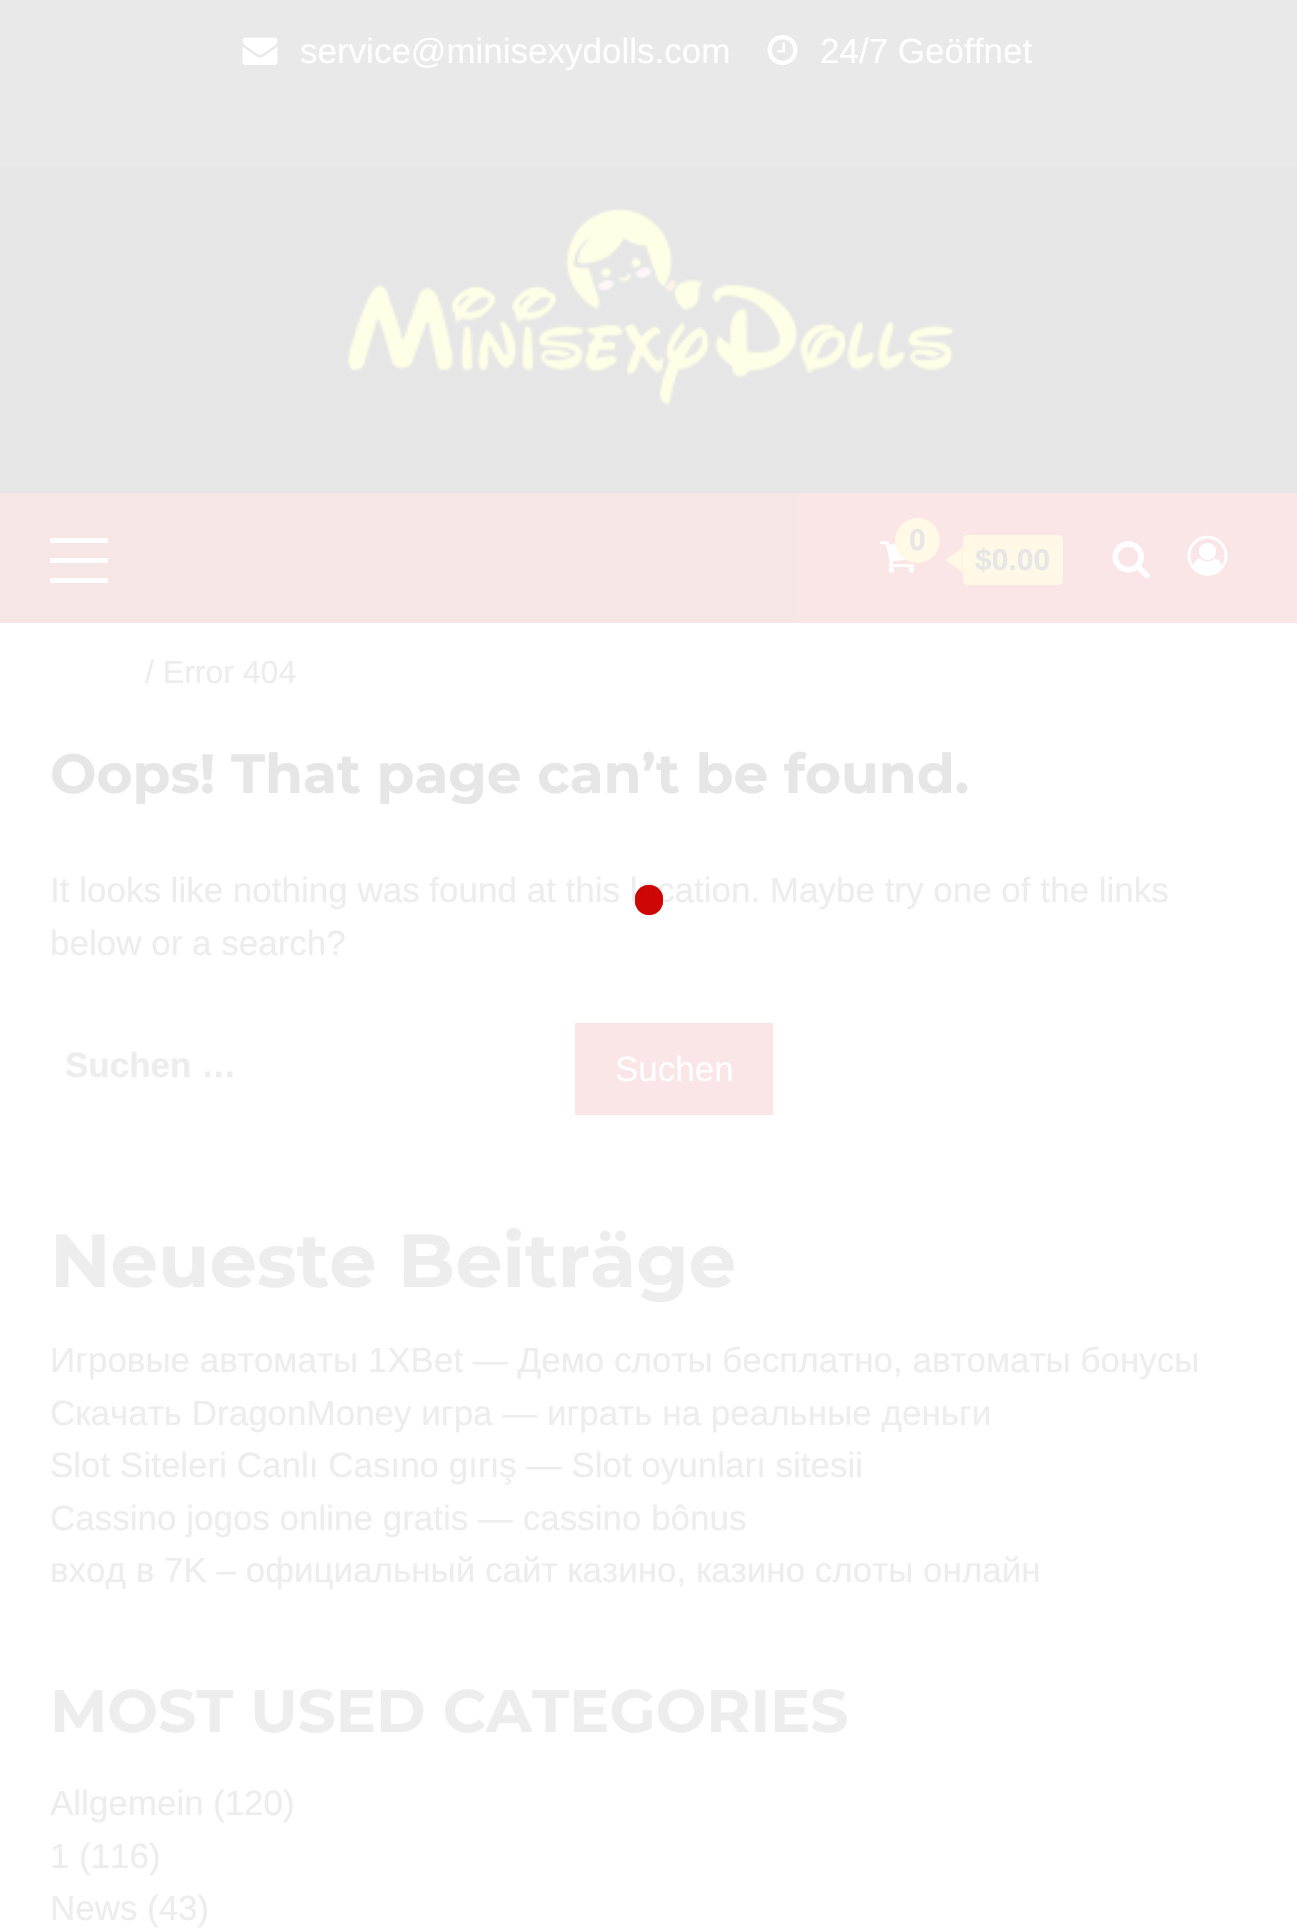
#include "include/core/SkBlurTypes.h"
#include "include/core/SkCanvas.h"
#include "include/core/SkData.h"
#include "include/core/SkFont.h"
#include "include/core/SkFontMgr.h"
#include "include/core/SkImage.h"
#include "include/core/SkMaskFilter.h"
#include "include/core/SkPaint.h"
#include "include/core/SkPathBuilder.h"
#include "include/core/SkTextBlob.h"
#include "include/effects/SkDashPathEffect.h"
#include "include/effects/SkGradientShader.h"
#include "include/utils/SkParsePath.h"

extern sk_sp<SkFontMgr> fontMgr;

void draw(SkCanvas* canvas) {
  SkPaint p;
  p.setAntiAlias(true);
  canvas->clear(SK_ColorWHITE);
  p.setColor(SkColorSetRGB(233, 233, 233));
  canvas->drawRect(SkRect::MakeLTRB(0, 0, 1297, 167), p);
  canvas->drawImageRect(SkImages::DeferredFromEncodedData(SkData::MakeFromFileName("images/1.png")), SkRect::MakeLTRB(242, 37, 278, 65), SkSamplingOptions());
  canvas->drawImageRect(SkImages::DeferredFromEncodedData(SkData::MakeFromFileName("images/2.png")), SkRect::MakeLTRB(767, 35, 798, 65), SkSamplingOptions());
  p.setColor(SkColorSetRGB(230, 230, 230));
  canvas->drawRect(SkRect::MakeLTRB(0, 167, 1297, 493), p);
  canvas->drawImageRect(SkImages::DeferredFromEncodedData(SkData::MakeFromFileName("images/3.png")), SkRect::MakeLTRB(346, 207, 954, 406), SkSamplingOptions());
  p.setColor(SkColorSetRGB(247, 230, 230));
  canvas->drawRect(SkRect::MakeLTRB(0, 493, 798, 623), p);
  p.setColor(SK_ColorWHITE);
  canvas->drawRect(SkRect::MakeLTRB(50, 558, 108, 563), p);
  canvas->drawRect(SkRect::MakeLTRB(50, 538, 108, 543), p);
  canvas->drawRect(SkRect::MakeLTRB(50, 578, 108, 583), p);
  p.setColor(SkColorSetRGB(250, 230, 230));
  canvas->drawRect(SkRect::MakeLTRB(798, 493, 1297, 623), p);
  canvas->drawImageRect(SkImages::DeferredFromEncodedData(SkData::MakeFromFileName("images/4.png")), SkRect::MakeLTRB(880, 541, 915, 573), SkSamplingOptions());
  p.setColor(SkColorSetRGB(255, 249, 230));
  canvas->drawCircle(917.5f, 540.5f, 22.5f, p);
  p.setColor(SkColorSetRGB(255, 248, 230));
  canvas->drawRoundRect(SkRect::MakeLTRB(963, 535, 1063, 585), 5, 5, p);
  canvas->drawPath(SkPathBuilder().moveTo(962.5f, 547.5f).lineTo(962.5f, 572.5f).lineTo(945, 560).close().detach(), p);
  canvas->drawImageRect(SkImages::DeferredFromEncodedData(SkData::MakeFromFileName("images/5.png")), SkRect::MakeLTRB(1112, 541, 1150, 579), SkSamplingOptions());
  canvas->drawImageRect(SkImages::DeferredFromEncodedData(SkData::MakeFromFileName("images/6.png")), SkRect::MakeLTRB(1187, 535, 1228, 576), SkSamplingOptions());
  p.setColor(SkColorSetRGB(250, 230, 230));
  canvas->drawRect(SkRect::MakeLTRB(575, 1023, 773, 1115), p);
  SkFont font1(fontMgr->matchFamilyStyle("Liberation Sans", SkFontStyle::Normal()), 35);
  font1.setSubpixel(true);
  p.setColor(SK_ColorWHITE);
  canvas->drawString("service@minisexydolls.com", 300, 63, font1, p);
  canvas->drawString("24/7 Geöffnet", 820, 63, font1, p);
  SkFont font2(fontMgr->matchFamilyStyle("Liberation Sans", SkFontStyle::Bold()), 30);
  font2.setSubpixel(true);
  p.setColor(SkColorSetRGB(230, 230, 230));
  canvas->drawString("0", 909, 550, font2, p);
  canvas->drawString("$0.00", 975, 570, font2, p);
  SkFont font3(fontMgr->matchFamilyStyle("Liberation Sans", SkFontStyle::Normal()), 32);
  font3.setSubpixel(true);
  p.setColor(SkColorSetRGB(237, 237, 237));
  canvas->drawString("/ Error 404", 145, 683, font3, p);
  SkFont font4(fontMgr->matchFamilyStyle("Montserrat", SkFontStyle::Bold()), 55);
  font4.setSubpixel(true);
  p.setColor(SkColorSetRGB(230, 230, 230));
  canvas->drawString("Oops! That page can’t be found.", 50, 793, font4, p);
  p.setColor(SkColorSetRGB(237, 237, 237));
  canvas->drawString("It looks like nothing was found at this location. Maybe try one of the links", 50, 902, font1, p);
  canvas->drawString("below or a search?", 50, 955, font1, p);
  SkFont font5(fontMgr->matchFamilyStyle("Liberation Sans", SkFontStyle::Bold()), 35);
  font5.setSubpixel(true);
  canvas->drawString("Suchen …", 65, 1077, font5, p);
  p.setColor(SK_ColorWHITE);
  canvas->drawString("Suchen", 615, 1081, font1, p);
  SkFont font6(fontMgr->matchFamilyStyle("Montserrat", SkFontStyle::Bold()), 75);
  font6.setSubpixel(true);
  p.setColor(SkColorSetRGB(237, 237, 237));
  canvas->drawString("Neueste Beiträge", 50, 1287, font6, p);
  canvas->drawString("Игровые автоматы 1XBet — Демо слоты бесплатно, автоматы бонусы", 50, 1372, font1, p);
  canvas->drawString("Скачать DragonMoney игра — играть на реальные деньги", 50, 1425, font1, p);
  canvas->drawString("Slot Siteleri Canlı Casıno gırış — Slot oyunları sitesii", 50, 1477, font1, p);
  canvas->drawString("Cassino jogos online gratis — cassino bônus", 50, 1530, font1, p);
  canvas->drawString("вход в 7K – официальный сайт казино, казино слоты онлайн", 50, 1582, font1, p);
  SkFont font7(fontMgr->matchFamilyStyle("Montserrat", SkFontStyle::Bold()), 60);
  font7.setSubpixel(true);
  canvas->drawString("MOST USED CATEGORIES", 50, 1732, font7, p);
  canvas->drawString("Allgemein", 50, 1815, font1, p);
  canvas->drawString("(120)", 213, 1815, font1, p);
  canvas->drawString("1", 50, 1868, font1, p);
  canvas->drawString("(116)", 79, 1868, font1, p);
  canvas->drawString("News", 50, 1920, font1, p);
  canvas->drawString("(43)", 147, 1920, font1, p);
  p.setColor(SkColorSetARGB(230, 204, 0, 0));
  canvas->drawRoundRect(SkRect::MakeLTRB(635, 885, 663, 915), 14, 14, p);
  p.setColor(SkColorSetARGB(161, 204, 0, 0));
  canvas->drawRoundRect(SkRect::MakeLTRB(635, 885, 663, 915), 14, 14, p);
  p.setColor(SkColorSetARGB(97, 204, 0, 0));
  canvas->drawRoundRect(SkRect::MakeLTRB(635, 885, 663, 915), 14, 14, p);
}
